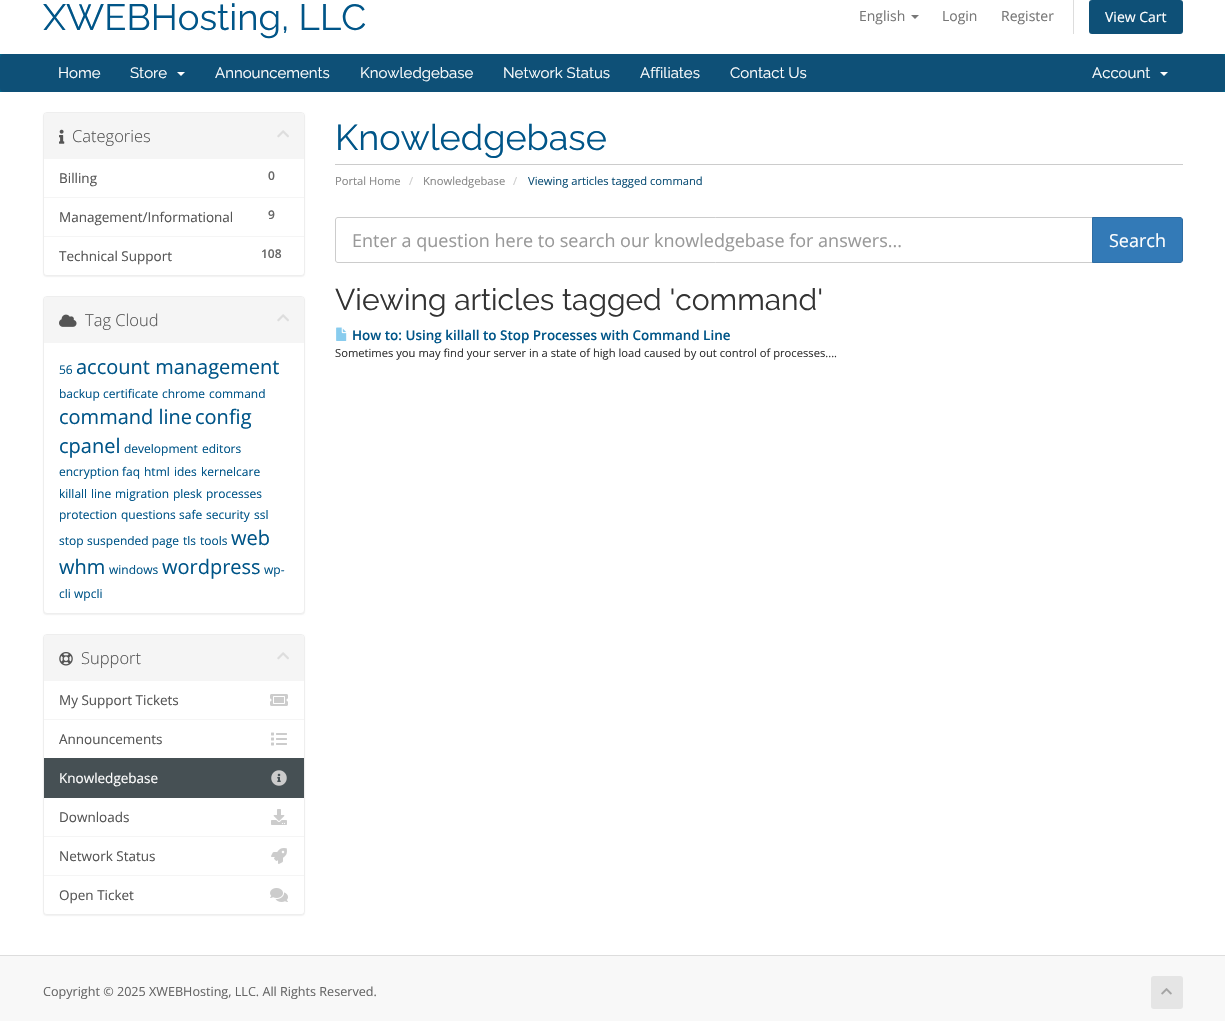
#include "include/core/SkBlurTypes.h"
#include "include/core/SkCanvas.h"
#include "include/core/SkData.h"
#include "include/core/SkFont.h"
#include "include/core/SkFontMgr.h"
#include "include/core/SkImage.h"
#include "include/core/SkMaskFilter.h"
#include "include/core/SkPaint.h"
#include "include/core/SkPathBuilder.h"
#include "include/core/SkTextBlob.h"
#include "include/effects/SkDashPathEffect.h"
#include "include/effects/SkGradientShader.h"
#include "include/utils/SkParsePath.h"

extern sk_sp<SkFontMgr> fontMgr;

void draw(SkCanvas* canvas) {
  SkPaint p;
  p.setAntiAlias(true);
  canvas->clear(SkColorSetRGB(248, 248, 248));
  p.setColor(SK_ColorWHITE);
  canvas->drawRect(SkRect::MakeLTRB(0, 0, 1225, 54), p);
  p.setColor(SkColorSetRGB(119, 119, 119));
  canvas->drawPath(SkPathBuilder().moveTo(911, 15).lineTo(919, 15).lineTo(915, 19).close().detach(), p);
  p.setColor(SkColorSetRGB(221, 221, 221));
  canvas->drawRect(SkRect::MakeLTRB(1073, 0, 1074, 34), p);
  p.setColor(SkColorSetRGB(14, 80, 119));
  canvas->drawRoundRect(SkRect::MakeLTRB(1089, 0, 1183, 34), 3, 3, p);
  p.setColor(SkColorSetRGB(0, 102, 135));
  canvas->drawRect(SkRect::MakeLTRB(0, 54, 1225, 92), p);
  p.setColor(SkColorSetRGB(14, 80, 119));
  canvas->drawRoundRect(SkRect::MakeLTRB(0, 54, 1225, 92), 4, 4, p);
  p.setColor(SK_ColorWHITE);
  canvas->drawPath(SkPathBuilder().moveTo(177, 72).lineTo(185, 72).lineTo(181, 76).close().detach(), p);
  canvas->drawPath(SkPathBuilder().moveTo(1160, 72).lineTo(1168, 72).lineTo(1164, 76).close().detach(), p);
  canvas->drawRect(SkRect::MakeLTRB(0, 92, 1225, 955), p);
  p.setColor(SkColorSetARGB(13, 0, 0, 0));
  p.setMaskFilter(SkMaskFilter::MakeBlur(kNormal_SkBlurStyle, 0.5f));
  canvas->drawRoundRect(SkRect::MakeLTRB(43, 113, 305, 277), 4, 4, p);
  p.setMaskFilter(nullptr);
  p.setColor(SK_ColorWHITE);
  canvas->drawRoundRect(SkRect::MakeLTRB(43.5f, 112.5f, 304.5f, 275.5f), 3.5f, 3.5f, p);
  p.setStyle(SkPaint::kStroke_Style);
  p.setStrokeWidth(1);
  p.setColor(SkColorSetRGB(238, 238, 238));
  canvas->drawRoundRect(SkRect::MakeLTRB(43.5f, 112.5f, 304.5f, 275.5f), 3.5f, 3.5f, p);
  p.setStyle(SkPaint::kFill_Style);
  p.setColor(SkColorSetRGB(245, 245, 245));
  canvas->drawPath(SkPathBuilder().moveTo(47, 113).lineTo(301, 113).cubicTo(302.5f, 113, 304, 114.5f, 304, 116).lineTo(304, 159).lineTo(44, 159).lineTo(44, 116).cubicTo(44, 114.5f, 45.5f, 113, 47, 113).close().detach(), p);
  canvas->drawImageRect(SkImages::DeferredFromEncodedData(SkData::MakeFromFileName("images/1.png")), SkRect::MakeLTRB(59, 129, 65, 144), SkSamplingOptions());
  canvas->drawImageRect(SkImages::DeferredFromEncodedData(SkData::MakeFromFileName("images/2.png")), SkRect::MakeLTRB(277, 130, 289, 138), SkSamplingOptions());
  canvas->drawRect(SkRect::MakeLTRB(44, 197, 304, 198), p);
  p.setColor(SK_ColorWHITE);
  canvas->drawPath(SkPathBuilder().moveTo(44, 236).lineTo(304, 236).lineTo(304, 272).cubicTo(304, 273.5f, 302.5f, 275, 301, 275).lineTo(47, 275).cubicTo(45.5f, 275, 44, 273.5f, 44, 272).close().detach(), p);
  p.setColor(SkColorSetRGB(245, 245, 245));
  canvas->drawRect(SkRect::MakeLTRB(44, 236, 304, 237), p);
  p.setColor(SkColorSetRGB(204, 204, 204));
  canvas->drawRect(SkRect::MakeLTRB(335, 164, 1183, 165), p);
  p.setStyle(SkPaint::kStroke_Style);
  canvas->drawPath(SkPathBuilder().moveTo(338, 217.5f).lineTo(1092.5f, 217.5f).lineTo(1092.5f, 262.5f).lineTo(338, 262.5f).cubicTo(336.5f, 262.5f, 335.5f, 261.5f, 335.5f, 260).lineTo(335.5f, 220).cubicTo(335.5f, 218.5f, 336.5f, 217.5f, 338, 217.5f).close().detach(), p);
  p.setStyle(SkPaint::kFill_Style);
  p.setColor(SkColorSetRGB(51, 122, 183));
  canvas->drawPath(SkPathBuilder().moveTo(1092.5f, 217.5f).lineTo(1180, 217.5f).cubicTo(1181.5f, 217.5f, 1182.5f, 218.5f, 1182.5f, 220).lineTo(1182.5f, 260).cubicTo(1182.5f, 261.5f, 1181.5f, 262.5f, 1180, 262.5f).lineTo(1092.5f, 262.5f).close().detach(), p);
  p.setStyle(SkPaint::kStroke_Style);
  p.setColor(SkColorSetRGB(46, 109, 164));
  canvas->drawPath(SkPathBuilder().moveTo(1092.5f, 217.5f).lineTo(1180, 217.5f).cubicTo(1181.5f, 217.5f, 1182.5f, 218.5f, 1182.5f, 220).lineTo(1182.5f, 260).cubicTo(1182.5f, 261.5f, 1181.5f, 262.5f, 1180, 262.5f).lineTo(1092.5f, 262.5f).close().detach(), p);
  canvas->drawImageRect(SkImages::DeferredFromEncodedData(SkData::MakeFromFileName("images/3.png")), SkRect::MakeLTRB(336, 327, 347, 341), SkSamplingOptions());
  p.setStyle(SkPaint::kFill_Style);
  p.setColor(SkColorSetARGB(13, 0, 0, 0));
  p.setMaskFilter(SkMaskFilter::MakeBlur(kNormal_SkBlurStyle, 0.5f));
  canvas->drawRoundRect(SkRect::MakeLTRB(43, 297, 305, 615), 4, 4, p);
  p.setMaskFilter(nullptr);
  p.setColor(SK_ColorWHITE);
  canvas->drawRoundRect(SkRect::MakeLTRB(43.5f, 296.5f, 304.5f, 613.5f), 3.5f, 3.5f, p);
  p.setStyle(SkPaint::kStroke_Style);
  p.setColor(SkColorSetRGB(238, 238, 238));
  canvas->drawRoundRect(SkRect::MakeLTRB(43.5f, 296.5f, 304.5f, 613.5f), 3.5f, 3.5f, p);
  p.setStyle(SkPaint::kFill_Style);
  p.setColor(SkColorSetRGB(245, 245, 245));
  canvas->drawPath(SkPathBuilder().moveTo(47, 297).lineTo(301, 297).cubicTo(302.5f, 297, 304, 298.5f, 304, 300).lineTo(304, 343).lineTo(44, 343).lineTo(44, 300).cubicTo(44, 298.5f, 45.5f, 297, 47, 297).close().detach(), p);
  canvas->drawImageRect(SkImages::DeferredFromEncodedData(SkData::MakeFromFileName("images/4.png")), SkRect::MakeLTRB(59, 314, 77, 327), SkSamplingOptions());
  canvas->drawImageRect(SkImages::DeferredFromEncodedData(SkData::MakeFromFileName("images/2.png")), SkRect::MakeLTRB(277, 314, 289, 322), SkSamplingOptions());
  p.setColor(SkColorSetARGB(13, 0, 0, 0));
  p.setMaskFilter(SkMaskFilter::MakeBlur(kNormal_SkBlurStyle, 0.5f));
  canvas->drawRoundRect(SkRect::MakeLTRB(43, 635, 305, 916), 4, 4, p);
  p.setMaskFilter(nullptr);
  p.setColor(SK_ColorWHITE);
  canvas->drawRoundRect(SkRect::MakeLTRB(43.5f, 634.5f, 304.5f, 914.5f), 3.5f, 3.5f, p);
  p.setStyle(SkPaint::kStroke_Style);
  p.setColor(SkColorSetRGB(238, 238, 238));
  canvas->drawRoundRect(SkRect::MakeLTRB(43.5f, 634.5f, 304.5f, 914.5f), 3.5f, 3.5f, p);
  p.setStyle(SkPaint::kFill_Style);
  p.setColor(SkColorSetRGB(245, 245, 245));
  canvas->drawPath(SkPathBuilder().moveTo(47, 635).lineTo(301, 635).cubicTo(302.5f, 635, 304, 636.5f, 304, 638).lineTo(304, 681).lineTo(44, 681).lineTo(44, 638).cubicTo(44, 636.5f, 45.5f, 635, 47, 635).close().detach(), p);
  canvas->drawImageRect(SkImages::DeferredFromEncodedData(SkData::MakeFromFileName("images/5.png")), SkRect::MakeLTRB(59, 652, 73, 666), SkSamplingOptions());
  canvas->drawImageRect(SkImages::DeferredFromEncodedData(SkData::MakeFromFileName("images/2.png")), SkRect::MakeLTRB(277, 652, 289, 660), SkSamplingOptions());
  canvas->drawRect(SkRect::MakeLTRB(44, 719, 304, 720), p);
  canvas->drawImageRect(SkImages::DeferredFromEncodedData(SkData::MakeFromFileName("images/6.png")), SkRect::MakeLTRB(270, 694, 288, 706), SkSamplingOptions());
  canvas->drawImageRect(SkImages::DeferredFromEncodedData(SkData::MakeFromFileName("images/7.png")), SkRect::MakeLTRB(271, 732, 287, 746), SkSamplingOptions());
  p.setColor(SkColorSetRGB(70, 80, 84));
  canvas->drawRect(SkRect::MakeLTRB(44, 758, 304, 798), p);
  canvas->drawImageRect(SkImages::DeferredFromEncodedData(SkData::MakeFromFileName("images/8.png")), SkRect::MakeLTRB(271, 770, 287, 786), SkSamplingOptions());
  p.setColor(SkColorSetRGB(245, 245, 245));
  canvas->drawRect(SkRect::MakeLTRB(44, 836, 304, 837), p);
  canvas->drawImageRect(SkImages::DeferredFromEncodedData(SkData::MakeFromFileName("images/9.png")), SkRect::MakeLTRB(271, 809, 287, 825), SkSamplingOptions());
  canvas->drawImageRect(SkImages::DeferredFromEncodedData(SkData::MakeFromFileName("images/10.png")), SkRect::MakeLTRB(271, 848, 287, 864), SkSamplingOptions());
  p.setColor(SK_ColorWHITE);
  canvas->drawPath(SkPathBuilder().moveTo(44, 875).lineTo(304, 875).lineTo(304, 911).cubicTo(304, 912.5f, 302.5f, 914, 301, 914).lineTo(47, 914).cubicTo(45.5f, 914, 44, 912.5f, 44, 911).close().detach(), p);
  p.setColor(SkColorSetRGB(245, 245, 245));
  canvas->drawRect(SkRect::MakeLTRB(44, 875, 304, 876), p);
  canvas->drawImageRect(SkImages::DeferredFromEncodedData(SkData::MakeFromFileName("images/11.png")), SkRect::MakeLTRB(270, 888, 288, 902), SkSamplingOptions());
  p.setColor(SkColorSetRGB(221, 221, 221));
  canvas->drawRect(SkRect::MakeLTRB(0, 955, 1225, 956), p);
  p.setColor(SkColorSetRGB(229, 229, 229));
  canvas->drawRoundRect(SkRect::MakeLTRB(1151, 976, 1183, 1009), 3, 3, p);
  canvas->drawImageRect(SkImages::DeferredFromEncodedData(SkData::MakeFromFileName("images/12.png")), SkRect::MakeLTRB(1161, 988, 1172, 995), SkSamplingOptions());
  SkFont font1(fontMgr->matchFamilyStyle("Raleway", SkFontStyle::Normal()), 36.5f);
  font1.setSubpixel(true);
  p.setColor(SkColorSetRGB(0, 85, 136));
  canvas->drawString("XWEBHosting, LLC", 43, 30, font1, p);
  SkFont font2(fontMgr->matchFamilyStyle("Open Sans", SkFontStyle::Normal()), 14);
  font2.setSubpixel(true);
  p.setColor(SkColorSetRGB(119, 119, 119));
  canvas->drawString("English", 859, 21, font2, p);
  canvas->drawString("Login", 942, 21, font2, p);
  canvas->drawString("Register", 1001, 21, font2, p);
  p.setColor(SK_ColorWHITE);
  canvas->drawString("View Cart", 1105, 22, font2, p);
  SkFont font3(fontMgr->matchFamilyStyle("Raleway", SkFontStyle::Normal()), 15);
  font3.setSubpixel(true);
  canvas->drawString("Home", 58, 78, font3, p);
  canvas->drawString("Store", 130, 78, font3, p);
  canvas->drawString("Announcements", 215, 78, font3, p);
  canvas->drawString("Knowledgebase", 360, 78, font3, p);
  canvas->drawString("Network Status", 503, 78, font3, p);
  canvas->drawString("Affiliates", 640, 78, font3, p);
  canvas->drawString("Contact Us", 730, 78, font3, p);
  canvas->drawString("Account", 1092, 78, font3, p);
  SkFont font4(fontMgr->matchFamilyStyle("Open Sans", SkFontStyle(300, SkFontStyle::kNormal_Width, SkFontStyle::kUpright_Slant)), 16.5f);
  font4.setSubpixel(true);
  p.setColor(SkColorSetRGB(85, 85, 85));
  canvas->drawString("Categories", 72, 142, font4, p);
  SkFont font5(fontMgr->matchFamilyStyle("Open Sans", SkFontStyle::Normal()), 13.5f);
  font5.setSubpixel(true);
  canvas->drawString("Billing", 59, 183, font5, p);
  SkFont font6(fontMgr->matchFamilyStyle("Open Sans", SkFontStyle(600, SkFontStyle::kNormal_Width, SkFontStyle::kUpright_Slant)), 12);
  font6.setSubpixel(true);
  p.setColor(SkColorSetRGB(102, 102, 102));
  canvas->drawString("0", 268, 180, font6, p);
  p.setColor(SkColorSetRGB(85, 85, 85));
  canvas->drawString("Management/Informational", 59, 222, font5, p);
  p.setColor(SkColorSetRGB(102, 102, 102));
  canvas->drawString("9", 268, 219, font6, p);
  p.setColor(SkColorSetRGB(85, 85, 85));
  canvas->drawString("Technical Support", 59, 261, font5, p);
  p.setColor(SkColorSetRGB(102, 102, 102));
  canvas->drawString("108", 261, 258, font6, p);
  SkFont font7(fontMgr->matchFamilyStyle("Raleway", SkFontStyle::Normal()), 36);
  font7.setSubpixel(true);
  p.setColor(SkColorSetRGB(0, 85, 136));
  canvas->drawString("Knowledgebase", 335, 150, font7, p);
  SkFont font8(fontMgr->matchFamilyStyle("Open Sans", SkFontStyle::Normal()), 11.2f);
  font8.setSubpixel(true);
  p.setColor(SkColorSetRGB(136, 136, 136));
  canvas->drawString("Portal Home", 335, 185, font8, p);
  p.setColor(SkColorSetRGB(204, 204, 204));
  canvas->drawString("/", 409, 185, font8, p);
  p.setColor(SkColorSetRGB(136, 136, 136));
  canvas->drawString("Knowledgebase", 423, 185, font8, p);
  p.setColor(SkColorSetRGB(204, 204, 204));
  canvas->drawString("/", 513, 185, font8, p);
  p.setColor(SkColorSetRGB(14, 80, 119));
  canvas->drawString("Viewing articles tagged command", 528, 185, font8, p);
  SkFont font9(fontMgr->matchFamilyStyle("Open Sans", SkFontStyle::Normal()), 18);
  font9.setSubpixel(true);
  p.setColor(SkColorSetRGB(153, 153, 153));
  canvas->drawString("Enter a question here to search our knowledgebase for answers...", 352, 247, font9, p);
  p.setColor(SK_ColorWHITE);
  canvas->drawString("Search", 1109, 247, font9, p);
  SkFont font10(fontMgr->matchFamilyStyle("Raleway", SkFontStyle::Normal()), 30);
  font10.setSubpixel(true);
  p.setColor(SkColorSetRGB(51, 51, 51));
  canvas->drawString("Viewing articles tagged 'command'", 335, 310, font10, p);
  SkFont font11(fontMgr->matchFamilyStyle("Open Sans", SkFontStyle(600, SkFontStyle::kNormal_Width, SkFontStyle::kUpright_Slant)), 13.45f);
  font11.setSubpixel(true);
  p.setColor(SkColorSetRGB(0, 85, 136));
  canvas->drawString("How to: Using killall to Stop Processes with Command Line", 352, 340, font11, p);
  p.setColor(SkColorSetRGB(51, 51, 51));
  canvas->drawString("Sometimes you may find your server in a state of high load caused by out control of processes....", 335, 357, font8, p);
  p.setColor(SkColorSetRGB(85, 85, 85));
  canvas->drawString("Tag Cloud", 85, 326, font4, p);
  SkFont font12(fontMgr->matchFamilyStyle("Open Sans", SkFontStyle::Normal()), 12);
  font12.setSubpixel(true);
  p.setColor(SkColorSetRGB(0, 85, 136));
  canvas->drawString("56", 59, 374, font12, p);
  SkFont font13(fontMgr->matchFamilyStyle("Open Sans", SkFontStyle::Normal()), 20);
  font13.setSubpixel(true);
  canvas->drawString("account management", 76, 374, font13, p);
  canvas->drawString("backup", 59, 398, font12, p);
  canvas->drawString("certificate", 103, 398, font12, p);
  canvas->drawString("chrome", 162, 398, font12, p);
  canvas->drawString("command", 209, 398, font12, p);
  canvas->drawString("command line", 59, 424, font13, p);
  canvas->drawString("config", 195, 424, font13, p);
  canvas->drawString("cpanel", 59, 453, font13, p);
  canvas->drawString("development", 124, 453, font12, p);
  canvas->drawString("editors", 202, 453, font12, p);
  canvas->drawString("encryption", 59, 476, font12, p);
  canvas->drawString("faq", 122, 476, font12, p);
  canvas->drawString("html", 144, 476, font12, p);
  canvas->drawString("ides", 174, 476, font12, p);
  canvas->drawString("kernelcare", 201, 476, font12, p);
  canvas->drawString("killall", 59, 498, font12, p);
  canvas->drawString("line", 91, 498, font12, p);
  canvas->drawString("migration", 115, 498, font12, p);
  canvas->drawString("plesk", 173, 498, font12, p);
  canvas->drawString("processes", 206, 498, font12, p);
  canvas->drawString("protection", 59, 519, font12, p);
  canvas->drawString("questions", 121, 519, font12, p);
  canvas->drawString("safe", 179, 519, font12, p);
  canvas->drawString("security", 206, 519, font12, p);
  canvas->drawString("ssl", 254, 519, font12, p);
  canvas->drawString("stop", 59, 545, font12, p);
  canvas->drawString("suspended page", 87, 545, font12, p);
  canvas->drawString("tls", 183, 545, font12, p);
  canvas->drawString("tools", 200, 545, font12, p);
  canvas->drawString("web", 231, 545, font13, p);
  canvas->drawString("whm", 59, 574, font13, p);
  canvas->drawString("windows", 109, 574, font12, p);
  canvas->drawString("wordpress", 162, 574, font13, p);
  canvas->drawString("wp-", 264, 574, font12, p);
  canvas->drawString("cli", 59, 598, font12, p);
  canvas->drawString("wpcli", 74, 598, font12, p);
  p.setColor(SkColorSetRGB(85, 85, 85));
  canvas->drawString("Support", 81, 664, font4, p);
  canvas->drawString("My Support Tickets", 59, 705, font5, p);
  canvas->drawString("Announcements", 59, 744, font5, p);
  p.setColor(SK_ColorWHITE);
  canvas->drawString("Knowledgebase", 59, 783, font5, p);
  p.setColor(SkColorSetRGB(85, 85, 85));
  canvas->drawString("Downloads", 59, 822, font5, p);
  canvas->drawString("Network Status", 59, 861, font5, p);
  canvas->drawString("Open Ticket", 59, 900, font5, p);
  SkFont font14(fontMgr->matchFamilyStyle("Open Sans", SkFontStyle::Normal()), 12.6f);
  font14.setSubpixel(true);
  p.setColor(SkColorSetRGB(102, 102, 102));
  canvas->drawString("Copyright © 2025 XWEBHosting, LLC. All Rights Reserved.", 43, 996, font14, p);
}
